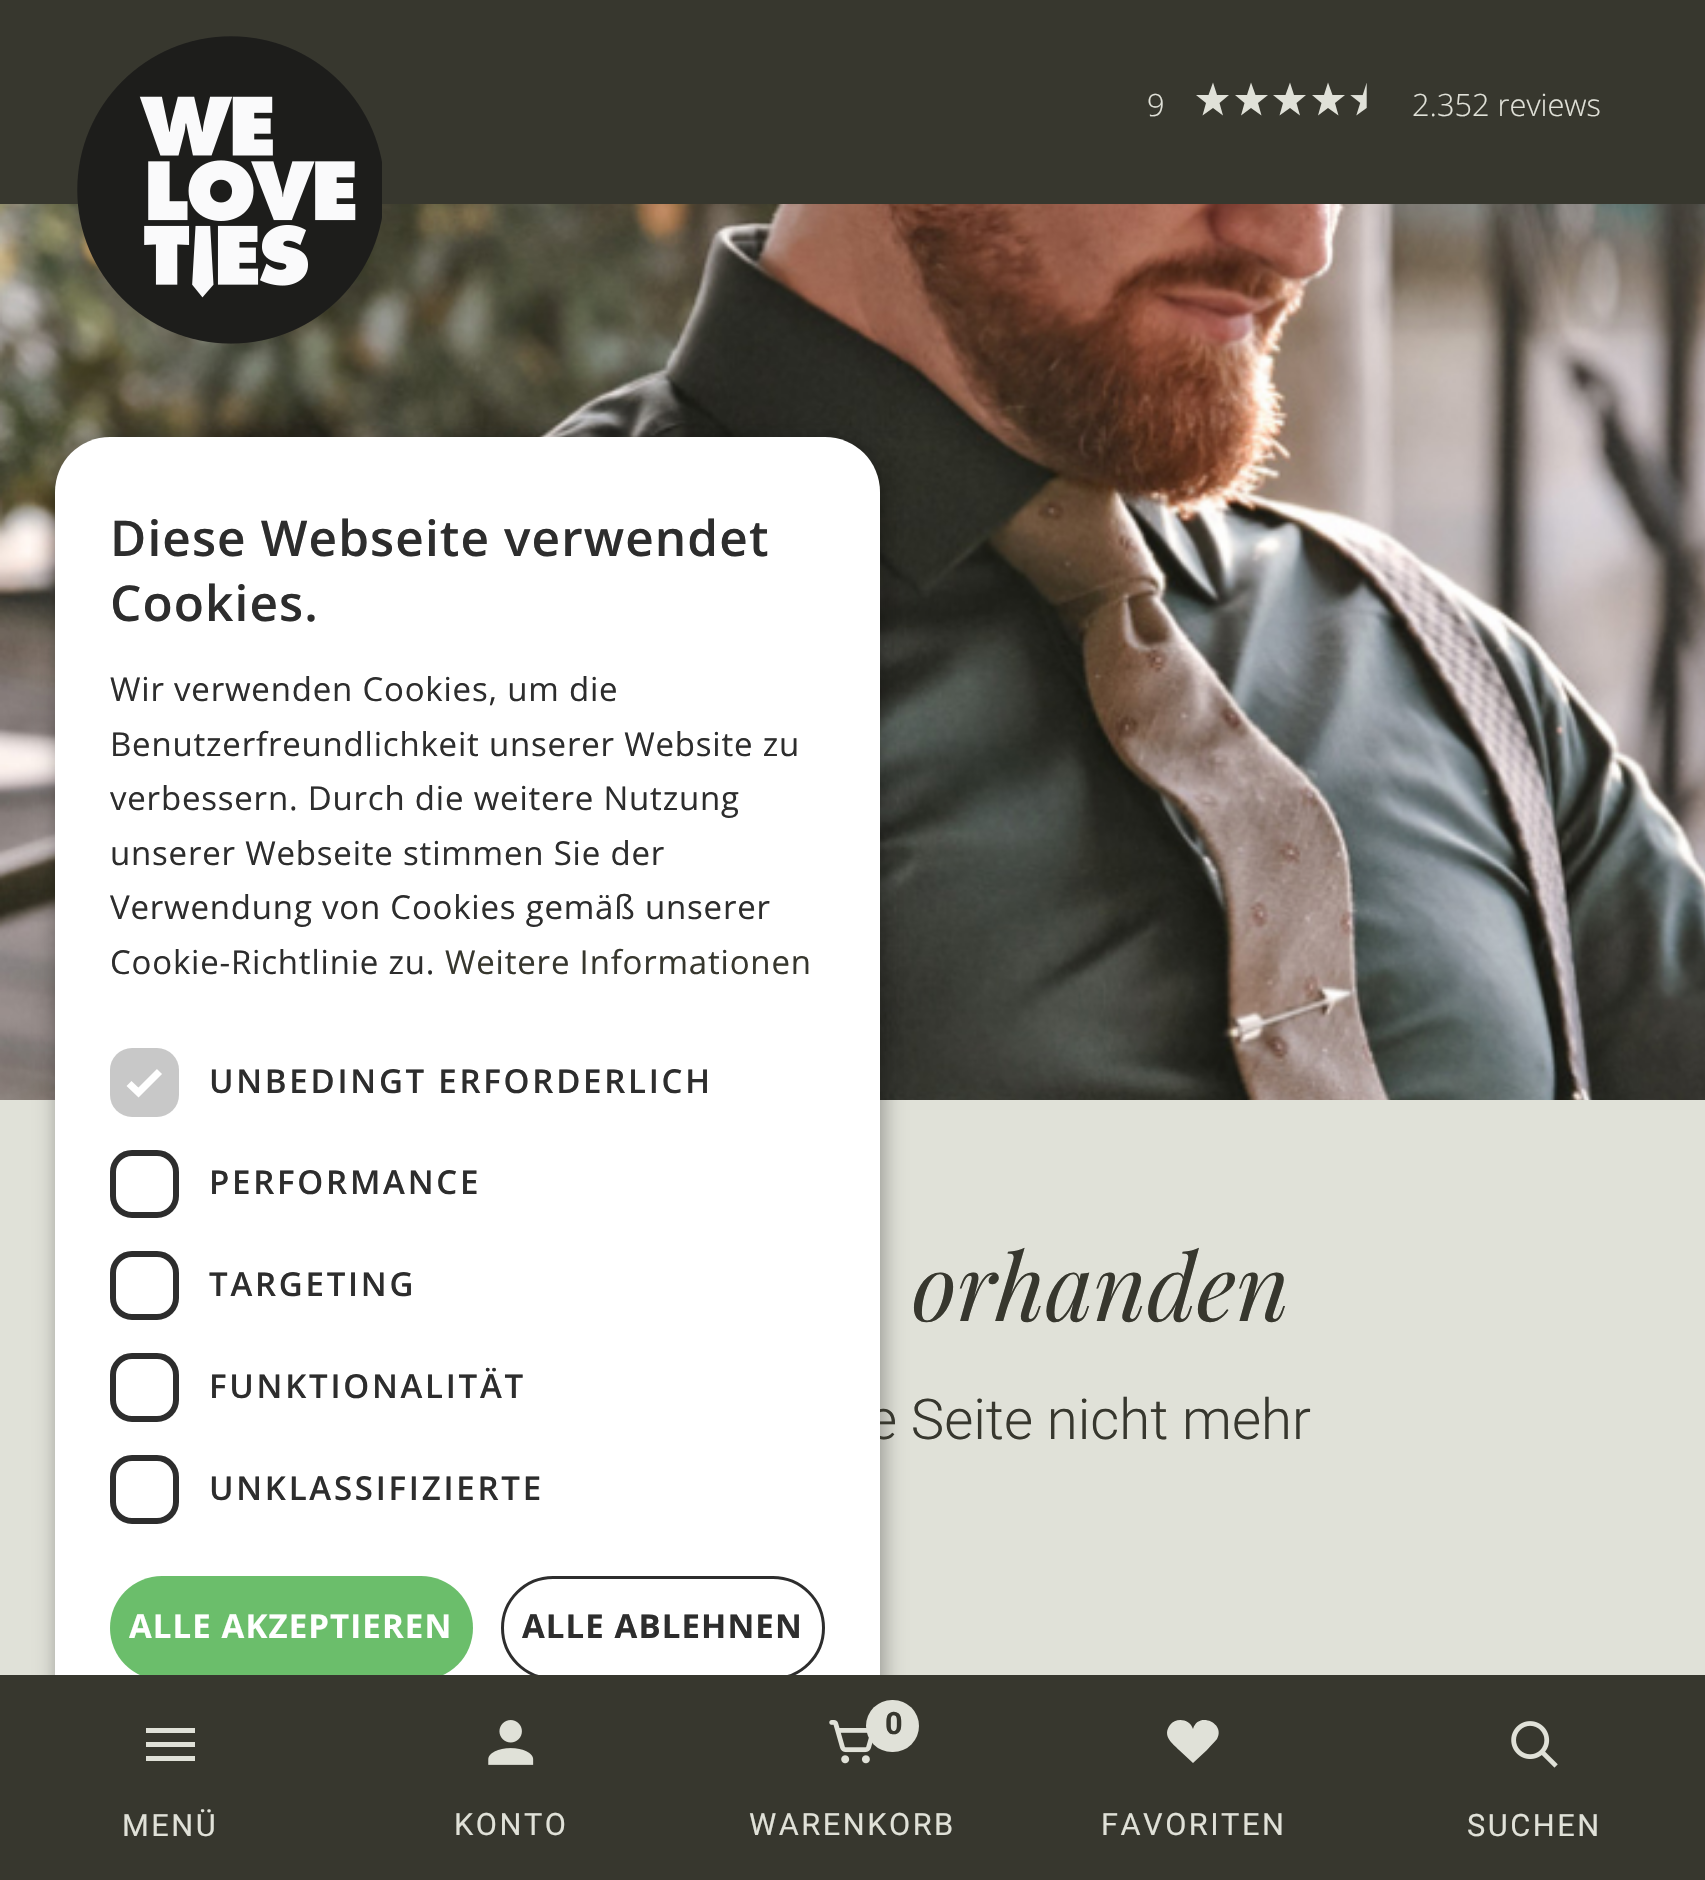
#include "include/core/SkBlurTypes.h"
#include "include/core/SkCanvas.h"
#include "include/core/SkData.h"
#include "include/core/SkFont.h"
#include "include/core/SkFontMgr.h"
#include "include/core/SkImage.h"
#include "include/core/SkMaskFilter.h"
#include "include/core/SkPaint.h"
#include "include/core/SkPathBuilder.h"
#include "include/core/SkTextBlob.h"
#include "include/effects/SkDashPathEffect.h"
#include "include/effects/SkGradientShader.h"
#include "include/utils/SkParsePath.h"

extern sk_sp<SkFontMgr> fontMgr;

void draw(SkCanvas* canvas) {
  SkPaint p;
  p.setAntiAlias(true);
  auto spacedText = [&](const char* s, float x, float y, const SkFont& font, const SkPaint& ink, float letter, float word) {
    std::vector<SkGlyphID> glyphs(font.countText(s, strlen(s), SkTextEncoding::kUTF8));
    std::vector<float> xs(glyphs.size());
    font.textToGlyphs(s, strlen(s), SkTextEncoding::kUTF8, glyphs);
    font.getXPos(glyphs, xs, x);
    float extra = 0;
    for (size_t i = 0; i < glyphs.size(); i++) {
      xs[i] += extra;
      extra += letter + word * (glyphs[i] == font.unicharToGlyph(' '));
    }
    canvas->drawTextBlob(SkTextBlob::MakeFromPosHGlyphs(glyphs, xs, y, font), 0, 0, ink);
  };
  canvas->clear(SkColorSetRGB(224, 225, 216));
  p.setColor(SkColorSetRGB(55, 55, 46));
  canvas->drawRect(SkRect::MakeLTRB(0, 0, 1705, 204), p);
  canvas->drawImageRect(SkImages::DeferredFromEncodedData(SkData::MakeFromFileName("images/3.png")), SkRect::MakeLTRB(0, 204, 1705, 1100), SkSamplingOptions());
  canvas->drawImageRect(SkImages::DeferredFromEncodedData(SkData::MakeFromFileName("images/1.png")), SkRect::MakeLTRB(77, 36, 382, 344), SkSamplingOptions());
  p.setColor(SkColorSetRGB(224, 225, 216));
  canvas->drawPath(SkPathBuilder().moveTo(1223, 115.5f).lineTo(1219.5f, 103).lineTo(1229, 95).lineTo(1217, 95).lineTo(1213, 82.5f).lineTo(1208.5f, 95).lineTo(1196, 95).lineTo(1206, 103).lineTo(1202.5f, 115.5f).lineTo(1213, 108).close().detach(), p);
  canvas->drawPath(SkPathBuilder().moveTo(1261.5f, 115.5f).lineTo(1258, 103).lineTo(1268, 95).lineTo(1255.5f, 95).lineTo(1251, 82.5f).lineTo(1247, 95).lineTo(1235, 95).lineTo(1244.5f, 103).lineTo(1241, 115.5f).lineTo(1251, 108).close().detach(), p);
  canvas->drawPath(SkPathBuilder().moveTo(1300, 115.5f).lineTo(1296.5f, 103).lineTo(1306, 95).lineTo(1294, 95).lineTo(1290, 82.5f).lineTo(1285.5f, 95).lineTo(1273, 95).lineTo(1283, 103).lineTo(1279.5f, 115.5f).lineTo(1290, 108).close().detach(), p);
  canvas->drawPath(SkPathBuilder().moveTo(1338.5f, 115.5f).lineTo(1335, 103).lineTo(1345, 95).lineTo(1332.5f, 95).lineTo(1328, 82.5f).lineTo(1324, 95).lineTo(1312, 95).lineTo(1321.5f, 103).lineTo(1318, 115.5f).lineTo(1328, 108).close().detach(), p);
  canvas->drawImageRect(SkImages::DeferredFromEncodedData(SkData::MakeFromFileName("images/2.png")), SkRect::MakeLTRB(1350, 83, 1367, 116), SkSamplingOptions());
  p.setColor(SkColorSetARGB(89, 0, 0, 0));
  p.setMaskFilter(SkMaskFilter::MakeBlur(kNormal_SkBlurStyle, 11));
  canvas->drawRoundRect(SkRect::MakeLTRB(58, 443, 883, 1832), 55, 55, p);
  p.setMaskFilter(nullptr);
  SkFont font1(fontMgr->matchFamilyStyle("Open Sans", SkFontStyle(300, SkFontStyle::kNormal_Width, SkFontStyle::kUpright_Slant)), 30.75f);
  font1.setSubpixel(true);
  p.setColor(SkColorSetRGB(224, 225, 216));
  canvas->drawString("9", 1147, 116, font1, p);
  canvas->drawString("2.352 reviews", 1412, 116, font1, p);
  SkFont font2(fontMgr->matchFamilyStyle("Playfair Display", SkFontStyle::Italic()), 92);
  font2.setSubpixel(true);
  p.setColor(SkColorSetRGB(55, 55, 46));
  canvas->drawString("orhanden", 912, 1321, font2, p);
  SkFont font3(fontMgr->matchFamilyStyle("Roboto", SkFontStyle(300, SkFontStyle::kNormal_Width, SkFontStyle::kUpright_Slant)), 56.25f);
  font3.setSubpixel(true);
  canvas->drawString("e Seite nicht mehr", 868, 1439, font3, p);
  p.setColor(SK_ColorWHITE);
  canvas->drawRoundRect(SkRect::MakeLTRB(55, 437, 880, 1826), 55, 55, p);
  SkFont font4(fontMgr->matchFamilyStyle("Open Sans", SkFontStyle(600, SkFontStyle::kNormal_Width, SkFontStyle::kUpright_Slant)), 49.5f);
  font4.setSubpixel(true);
  p.setColor(SkColorSetRGB(45, 45, 45));
  spacedText("Diese Webseite verwendet", 110, 556, font4, p, 1.1f, 0);
  spacedText("Cookies.", 110, 621, font4, p, 1.1f, 0);
  SkFont font5(fontMgr->matchFamilyStyle("Open Sans", SkFontStyle::Normal()), 33);
  font5.setSubpixel(true);
  spacedText("Wir verwenden Cookies, um die", 110, 701, font5, p, 0.8f, 0);
  spacedText("Benutzerfreundlichkeit unserer Website zu", 110, 756, font5, p, 0.8f, 0);
  spacedText("verbessern. Durch die weitere Nutzung", 110, 810, font5, p, 0.8f, 0);
  spacedText("unserer Webseite stimmen Sie der", 110, 865, font5, p, 0.8f, 0);
  spacedText("Verwendung von Cookies gemäß unserer", 110, 919, font5, p, 0.8f, 0);
  spacedText("Cookie-Richtlinie zu.", 110, 974, font5, p, 0.8f, 0);
  p.setColor(SkColorSetRGB(55, 55, 46));
  spacedText("Weitere Informationen", 445, 974, font5, p, 0.8f, 0);
  p.setColor(SkColorSetRGB(200, 200, 200));
  canvas->drawRoundRect(SkRect::MakeLTRB(110, 1048, 179, 1117), 22, 22, p);
  p.setStyle(SkPaint::kStroke_Style);
  p.setStrokeWidth(7.2f);
  p.setColor(SK_ColorWHITE);
  canvas->drawPath(SkPathBuilder().moveTo(129, 1083.5f).lineTo(138.5f, 1092.5f).lineTo(159.5f, 1071.5f).detach(), p);
  SkFont font6(fontMgr->matchFamilyStyle("Open Sans", SkFontStyle(600, SkFontStyle::kNormal_Width, SkFontStyle::kUpright_Slant)), 33);
  font6.setSubpixel(true);
  p.setStyle(SkPaint::kFill_Style);
  p.setColor(SkColorSetRGB(45, 45, 45));
  spacedText("UNBEDINGT ERFORDERLICH", 209, 1093, font6, p, 2.75f, 0);
  p.setStyle(SkPaint::kStroke_Style);
  p.setStrokeWidth(6);
  canvas->drawRoundRect(SkRect::MakeLTRB(113, 1153, 176, 1215), 19, 19, p);
  p.setStyle(SkPaint::kFill_Style);
  spacedText("PERFORMANCE", 209, 1194, font6, p, 2.75f, 0);
  p.setStyle(SkPaint::kStroke_Style);
  canvas->drawRoundRect(SkRect::MakeLTRB(113, 1254, 176, 1317), 19, 19, p);
  p.setStyle(SkPaint::kFill_Style);
  spacedText("TARGETING", 209, 1296, font6, p, 2.75f, 0);
  p.setStyle(SkPaint::kStroke_Style);
  canvas->drawRoundRect(SkRect::MakeLTRB(113, 1356, 176, 1419), 19, 19, p);
  p.setStyle(SkPaint::kFill_Style);
  spacedText("FUNKTIONALITÄT", 209, 1398, font6, p, 2.75f, 0);
  p.setStyle(SkPaint::kStroke_Style);
  canvas->drawRoundRect(SkRect::MakeLTRB(113, 1458, 176, 1521), 19, 19, p);
  p.setStyle(SkPaint::kFill_Style);
  spacedText("UNKLASSIFIZIERTE", 209, 1500, font6, p, 2.75f, 0);
  p.setColor(SkColorSetRGB(107, 190, 107));
  canvas->drawRoundRect(SkRect::MakeLTRB(110, 1576, 473, 1680), 52, 52, p);
  SkFont font7(fontMgr->matchFamilyStyle("Open Sans", SkFontStyle::Bold()), 33);
  font7.setSubpixel(true);
  p.setColor(SK_ColorWHITE);
  spacedText("ALLE AKZEPTIEREN", 129, 1638, font7, p, 1.1f, 0);
  p.setStyle(SkPaint::kStroke_Style);
  p.setStrokeWidth(3);
  p.setColor(SkColorSetRGB(45, 45, 45));
  canvas->drawRoundRect(SkRect::MakeLTRB(502.5f, 1577.5f, 823.5f, 1678.5f), 50.5f, 50.5f, p);
  p.setStyle(SkPaint::kFill_Style);
  p.setColor(SkColorSetRGB(55, 55, 46));
  canvas->drawRect(SkRect::MakeLTRB(0, 1675, 1705, 1880), p);
  canvas->drawImageRect(SkImages::DeferredFromEncodedData(SkData::MakeFromFileName("images/5.png")), SkRect::MakeLTRB(829, 1720, 873, 1764), SkSamplingOptions());
  p.setColor(SkColorSetRGB(224, 225, 216));
  canvas->drawRoundRect(SkRect::MakeLTRB(866, 1700, 919, 1752), 26, 26, p);
  SkFont font8(fontMgr->matchFamilyStyle("Roboto", SkFontStyle::Bold()), 30.75f);
  font8.setSubpixel(true);
  p.setColor(SkColorSetRGB(55, 55, 46));
  canvas->drawString("0", 885, 1734, font8, p);
  canvas->drawImageRect(SkImages::DeferredFromEncodedData(SkData::MakeFromFileName("images/6.png")), SkRect::MakeLTRB(1511, 1721, 1558, 1768), SkSamplingOptions());
  p.setColor(SkColorSetRGB(224, 225, 216));
  canvas->drawPath(SkPathBuilder().moveTo(1217, 1739).cubicTo(1226, 1723, 1198, 1711, 1193, 1729).cubicTo(1190, 1719, 1176, 1717, 1170, 1725).cubicTo(1162, 1736, 1172, 1743, 1179, 1750).lineTo(1193, 1763).lineTo(1207, 1750).cubicTo(1210, 1746, 1214, 1743, 1217, 1739).close().detach(), p);
  SkFont font9(fontMgr->matchFamilyStyle("Roboto", SkFontStyle::Normal()), 30.75f);
  font9.setSubpixel(true);
  spacedText("WARENKORB", 749, 1835, font9, p, 2.5f, 0);
  canvas->drawImageRect(SkImages::DeferredFromEncodedData(SkData::MakeFromFileName("images/4.png")), SkRect::MakeLTRB(488, 1720, 534, 1765), SkSamplingOptions());
  canvas->drawPath(SkPathBuilder().moveTo(146, 1761).lineTo(195, 1761).lineTo(195, 1756).lineTo(146, 1756).close().moveTo(146, 1747).lineTo(195, 1747).lineTo(195, 1742).lineTo(146, 1742).close().moveTo(146, 1728).lineTo(146, 1733).lineTo(195, 1733).lineTo(195, 1728).close().detach(), p);
  spacedText("SUCHEN", 1467, 1836, font9, p, 2.5f, 0);
  spacedText("FAVORITEN", 1101, 1835, font9, p, 2.5f, 0);
  spacedText("KONTO", 454, 1835, font9, p, 2.5f, 0);
  spacedText("MENÜ", 122, 1836, font9, p, 2.5f, 0);
  p.setColor(SkColorSetRGB(45, 45, 45));
  spacedText("ALLE ABLEHNEN", 522, 1638, font7, p, 1.1f, 0);
}
